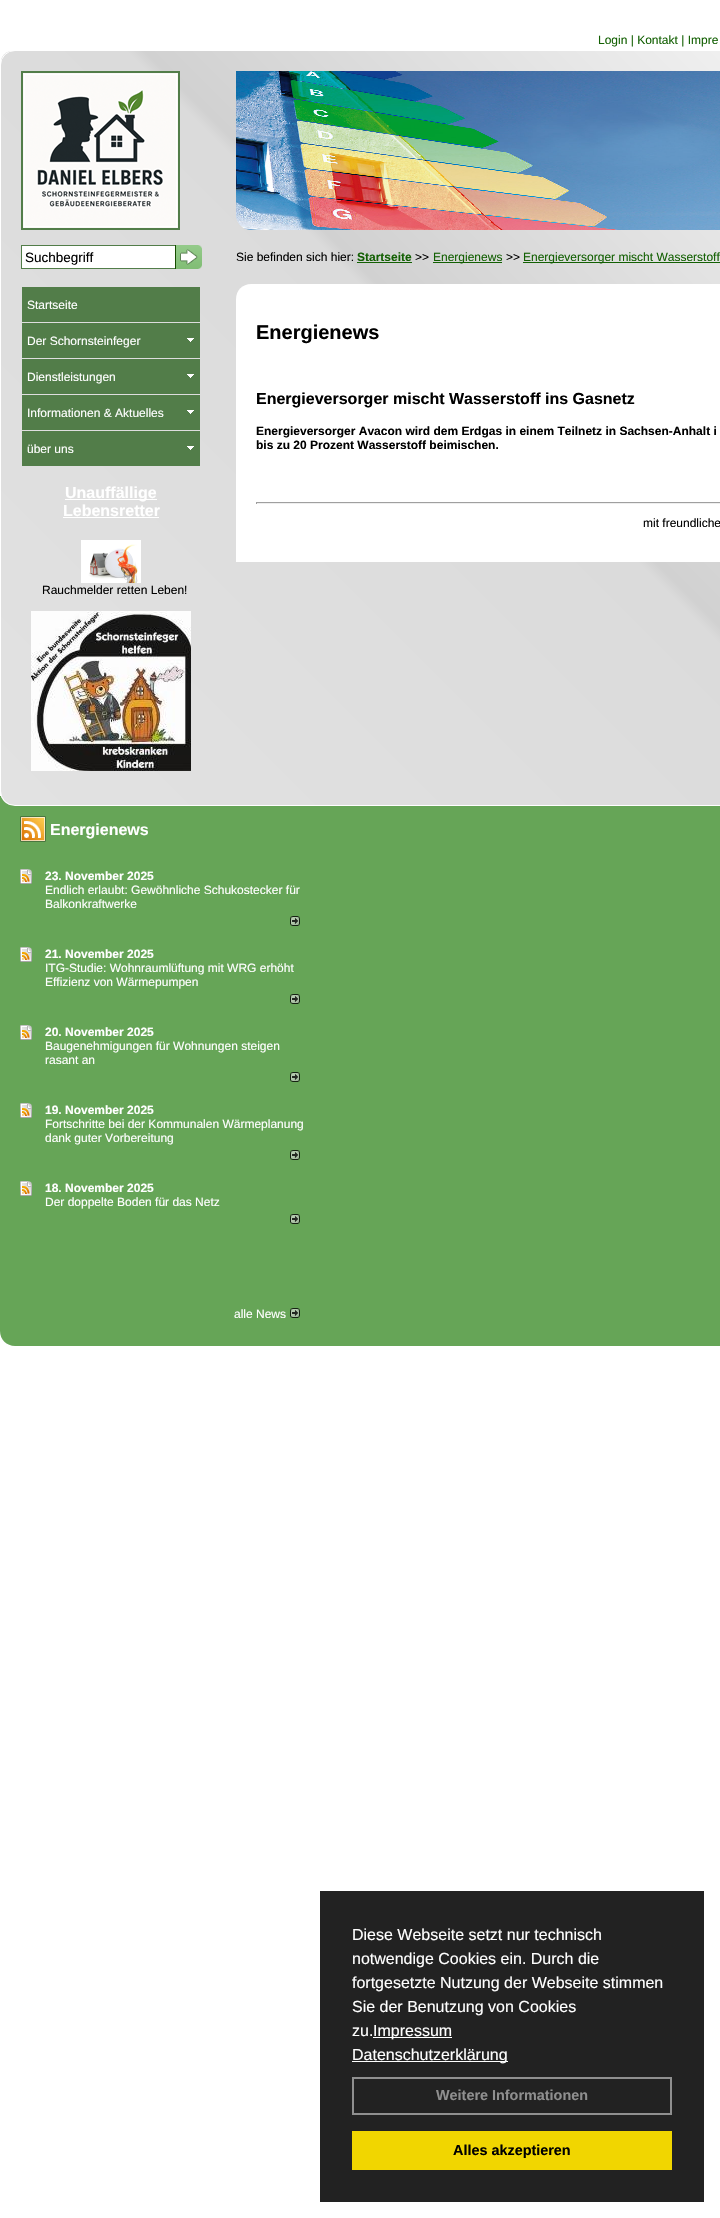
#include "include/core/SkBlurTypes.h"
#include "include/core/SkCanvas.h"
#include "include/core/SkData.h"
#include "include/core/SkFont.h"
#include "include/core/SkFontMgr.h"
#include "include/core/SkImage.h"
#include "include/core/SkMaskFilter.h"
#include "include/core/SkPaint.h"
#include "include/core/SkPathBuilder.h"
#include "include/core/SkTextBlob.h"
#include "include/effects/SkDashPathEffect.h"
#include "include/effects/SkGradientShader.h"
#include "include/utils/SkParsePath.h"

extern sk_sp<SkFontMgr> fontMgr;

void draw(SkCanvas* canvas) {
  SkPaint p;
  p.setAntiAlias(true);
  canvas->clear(SK_ColorWHITE);
  p.setColor(SkColorSetRGB(102, 165, 87));
  canvas->drawPath(SkPathBuilder().moveTo(0, 796).lineTo(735, 796).lineTo(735, 1331).cubicTo(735, 1339.5f, 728.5f, 1346, 720, 1346).lineTo(15, 1346).cubicTo(6.5f, 1346, 0, 1339.5f, 0, 1331).close().detach(), p);
  canvas->save();
  canvas->clipPath(SkPathBuilder().moveTo(15, 50).lineTo(993, 50).cubicTo(1001.5f, 50, 1008, 56.5f, 1008, 65).lineTo(1008, 791).cubicTo(1008, 799.5f, 1001.5f, 806, 993, 806).lineTo(15, 806).cubicTo(6.5f, 806, 0, 799.5f, 0, 791).lineTo(0, 65).cubicTo(0, 56.5f, 6.5f, 50, 15, 50).close().detach(), true);
  {
    const SkColor colors[] = {SkColorSetRGB(226, 226, 226), SkColorSetRGB(219, 219, 219), SkColorSetRGB(209, 209, 209), SkColorSetRGB(254, 254, 254)};
    const float stops[] = {0, 0.5f, 0.51f, 1};
    const SkPoint ends[] = {{64, 868}, {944, -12}};
    p.setShader(SkGradientShader::MakeLinear(ends, colors, stops, 4, SkTileMode::kClamp));
    p.setAlpha(255);
  }
  canvas->drawRect(SkRect::MakeLTRB(1, 51, 720, 805), p);
  canvas->restore();
  p.setStyle(SkPaint::kStroke_Style);
  p.setStrokeWidth(1);
  p.setShader(nullptr);
  p.setColor(SK_ColorWHITE);
  canvas->drawRoundRect(SkRect::MakeLTRB(0.5f, 50.5f, 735.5f, 805.5f), 14.5f, 14.5f, p);
  p.setStrokeWidth(2);
  p.setColor(SkColorSetRGB(82, 125, 73));
  canvas->drawRect(SkRect::MakeLTRB(22, 72, 179, 229), p);
  canvas->drawImageRect(SkImages::DeferredFromEncodedData(SkData::MakeFromFileName("images/1.png")), SkRect::MakeLTRB(23, 73, 178, 228), SkSamplingOptions());
  p.setStyle(SkPaint::kFill_Style);
  p.setColor(SK_ColorWHITE);
  canvas->drawRect(SkRect::MakeLTRB(22, 246, 175, 268), p);
  p.setColor(SkColorSetRGB(82, 125, 73));
  canvas->drawRect(SkRect::MakeLTRB(21, 245, 175, 246), p);
  canvas->drawRect(SkRect::MakeLTRB(21, 268, 175, 269), p);
  canvas->drawRect(SkRect::MakeLTRB(21, 245, 22, 269), p);
  canvas->drawImageRect(SkImages::DeferredFromEncodedData(SkData::MakeFromFileName("images/2.png")), SkRect::MakeLTRB(175, 245, 202, 269), SkSamplingOptions());
  canvas->drawRect(SkRect::MakeLTRB(22, 287, 200, 322), p);
  canvas->drawRect(SkRect::MakeLTRB(22, 323, 200, 358), p);
  canvas->drawImageRect(SkImages::DeferredFromEncodedData(SkData::MakeFromFileName("images/3.png")), SkRect::MakeLTRB(187, 338, 194, 342), SkSamplingOptions());
  canvas->drawRect(SkRect::MakeLTRB(22, 359, 200, 394), p);
  canvas->drawImageRect(SkImages::DeferredFromEncodedData(SkData::MakeFromFileName("images/3.png")), SkRect::MakeLTRB(187, 374, 194, 378), SkSamplingOptions());
  canvas->drawRect(SkRect::MakeLTRB(22, 395, 200, 430), p);
  canvas->drawImageRect(SkImages::DeferredFromEncodedData(SkData::MakeFromFileName("images/3.png")), SkRect::MakeLTRB(187, 410, 194, 414), SkSamplingOptions());
  canvas->drawRect(SkRect::MakeLTRB(22, 431, 200, 466), p);
  canvas->drawImageRect(SkImages::DeferredFromEncodedData(SkData::MakeFromFileName("images/3.png")), SkRect::MakeLTRB(187, 446, 194, 450), SkSamplingOptions());
  p.setColor(SK_ColorWHITE);
  canvas->drawRect(SkRect::MakeLTRB(65, 499, 157, 500), p);
  canvas->drawRect(SkRect::MakeLTRB(63, 517, 159, 518), p);
  canvas->drawImageRect(SkImages::DeferredFromEncodedData(SkData::MakeFromFileName("images/4.png")), SkRect::MakeLTRB(81, 540, 141, 583), SkSamplingOptions());
  canvas->drawImageRect(SkImages::DeferredFromEncodedData(SkData::MakeFromFileName("images/5.png")), SkRect::MakeLTRB(31, 611, 191, 771), SkSamplingOptions());
  canvas->drawImageRect(SkImages::DeferredFromEncodedData(SkData::MakeFromFileName("images/6.png")), SkRect::MakeLTRB(236, 71, 720, 230), SkSamplingOptions());
  p.setColor(SkColorSetRGB(19, 96, 3));
  canvas->drawRect(SkRect::MakeLTRB(357, 262, 412, 263), p);
  canvas->drawRect(SkRect::MakeLTRB(433, 262, 502, 263), p);
  canvas->drawRect(SkRect::MakeLTRB(523, 262, 720, 263), p);
  p.setColor(SK_ColorWHITE);
  canvas->drawPath(SkPathBuilder().moveTo(251, 284).lineTo(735, 284).lineTo(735, 562).lineTo(236, 562).lineTo(236, 299).cubicTo(236, 290.5f, 242.5f, 284, 251, 284).close().detach(), p);
  p.setColor(SkColorSetRGB(159, 159, 159));
  canvas->drawRect(SkRect::MakeLTRB(256, 502, 720, 503), p);
  p.setColor(SkColorSetRGB(238, 238, 238));
  canvas->drawRect(SkRect::MakeLTRB(256, 503, 720, 504), p);
  p.setColor(SkColorSetRGB(159, 159, 159));
  canvas->drawRect(SkRect::MakeLTRB(256, 502, 257, 504), p);
  canvas->drawImageRect(SkImages::DeferredFromEncodedData(SkData::MakeFromFileName("images/7.png")), SkRect::MakeLTRB(20, 816, 46, 842), SkSamplingOptions());
  canvas->drawImageRect(SkImages::DeferredFromEncodedData(SkData::MakeFromFileName("images/8.png")), SkRect::MakeLTRB(20, 869, 32, 884), SkSamplingOptions());
  canvas->drawImageRect(SkImages::DeferredFromEncodedData(SkData::MakeFromFileName("images/9.png")), SkRect::MakeLTRB(290, 916, 300, 926), SkSamplingOptions());
  canvas->drawImageRect(SkImages::DeferredFromEncodedData(SkData::MakeFromFileName("images/8.png")), SkRect::MakeLTRB(20, 947, 32, 962), SkSamplingOptions());
  canvas->drawImageRect(SkImages::DeferredFromEncodedData(SkData::MakeFromFileName("images/9.png")), SkRect::MakeLTRB(290, 994, 300, 1004), SkSamplingOptions());
  canvas->drawImageRect(SkImages::DeferredFromEncodedData(SkData::MakeFromFileName("images/8.png")), SkRect::MakeLTRB(20, 1025, 32, 1040), SkSamplingOptions());
  canvas->drawImageRect(SkImages::DeferredFromEncodedData(SkData::MakeFromFileName("images/9.png")), SkRect::MakeLTRB(290, 1072, 300, 1082), SkSamplingOptions());
  canvas->drawImageRect(SkImages::DeferredFromEncodedData(SkData::MakeFromFileName("images/8.png")), SkRect::MakeLTRB(20, 1103, 32, 1118), SkSamplingOptions());
  canvas->drawImageRect(SkImages::DeferredFromEncodedData(SkData::MakeFromFileName("images/9.png")), SkRect::MakeLTRB(290, 1150, 300, 1160), SkSamplingOptions());
  canvas->drawImageRect(SkImages::DeferredFromEncodedData(SkData::MakeFromFileName("images/8.png")), SkRect::MakeLTRB(20, 1181, 32, 1196), SkSamplingOptions());
  canvas->drawImageRect(SkImages::DeferredFromEncodedData(SkData::MakeFromFileName("images/9.png")), SkRect::MakeLTRB(290, 1214, 300, 1224), SkSamplingOptions());
  canvas->drawImageRect(SkImages::DeferredFromEncodedData(SkData::MakeFromFileName("images/9.png")), SkRect::MakeLTRB(290, 1308, 300, 1318), SkSamplingOptions());
  p.setColor(SkColorSetRGB(34, 34, 34));
  canvas->drawRect(SkRect::MakeLTRB(320, 1891, 704, 2202), p);
  p.setColor(SK_ColorWHITE);
  canvas->drawRect(SkRect::MakeLTRB(373, 2037, 452, 2038), p);
  canvas->drawRect(SkRect::MakeLTRB(352, 2061, 508, 2062), p);
  p.setStyle(SkPaint::kStroke_Style);
  p.setColor(SkColorSetRGB(143, 143, 143));
  canvas->drawRect(SkRect::MakeLTRB(353, 2078, 671, 2114), p);
  p.setStyle(SkPaint::kFill_Style);
  p.setColor(SkColorSetRGB(241, 214, 0));
  canvas->drawRect(SkRect::MakeLTRB(352, 2131, 672, 2170), p);
  SkFont font1(fontMgr->matchFamilyStyle("Liberation Sans", SkFontStyle::Normal()), 12);
  font1.setSubpixel(true);
  p.setColor(SkColorSetRGB(19, 96, 3));
  canvas->drawString("Login | Kontakt | Impre", 598, 44, font1, p);
  SkFont font2(fontMgr->matchFamilyStyle("Liberation Sans", SkFontStyle::Normal()), 13.5f);
  font2.setSubpixel(true);
  p.setColor(SK_ColorBLACK);
  canvas->drawString("Suchbegriff", 25, 262, font2, p);
  p.setColor(SK_ColorWHITE);
  canvas->drawString("Startseite", 27, 309, font1, p);
  canvas->drawString("Der Schornsteinfeger", 27, 345, font1, p);
  canvas->drawString("Dienstleistungen", 27, 381, font1, p);
  canvas->drawString("Informationen & Aktuelles", 27, 417, font1, p);
  canvas->drawString("über uns", 27, 453, font1, p);
  SkFont font3(fontMgr->matchFamilyStyle("Liberation Sans", SkFontStyle::Bold()), 16);
  font3.setSubpixel(true);
  canvas->drawString("Unauffällige", 65, 498, font3, p);
  canvas->drawString("Lebensretter", 63, 516, font3, p);
  p.setColor(SK_ColorBLACK);
  canvas->drawString("Rauchmelder retten Leben!", 42, 594, font1, p);
  canvas->drawString("Sie befinden sich hier:", 236, 261, font1, p);
  SkFont font4(fontMgr->matchFamilyStyle("Liberation Sans", SkFontStyle::Bold()), 12);
  font4.setSubpixel(true);
  p.setColor(SkColorSetRGB(19, 96, 3));
  canvas->drawString("Startseite", 357, 261, font4, p);
  p.setColor(SK_ColorBLACK);
  canvas->drawString(">>", 415, 261, font1, p);
  p.setColor(SkColorSetRGB(19, 96, 3));
  canvas->drawString("Energienews", 433, 261, font1, p);
  p.setColor(SK_ColorBLACK);
  canvas->drawString(">>", 506, 261, font1, p);
  p.setColor(SkColorSetRGB(19, 96, 3));
  canvas->drawString("Energieversorger mischt Wasserstoff", 523, 261, font1, p);
  SkFont font5(fontMgr->matchFamilyStyle("Liberation Sans", SkFontStyle::Bold()), 20);
  font5.setSubpixel(true);
  p.setColor(SK_ColorBLACK);
  canvas->drawString("Energienews", 256, 339, font5, p);
  canvas->drawString("Energieversorger mischt Wasserstoff ins Gasnetz", 256, 404, font3, p);
  canvas->drawString("Energieversorger Avacon wird dem Erdgas in einem Teilnetz in Sachsen-Anhalt i", 256, 435, font4, p);
  canvas->drawString("bis zu 20 Prozent Wasserstoff beimischen.", 256, 449, font4, p);
  canvas->drawString("mit freundliche", 643, 527, font1, p);
  p.setColor(SK_ColorWHITE);
  canvas->drawString("Energienews", 50, 835, font3, p);
  canvas->drawString("23. November 2025", 45, 880, font4, p);
  canvas->drawString("Endlich erlaubt: Gewöhnliche Schukostecker für", 45, 894, font1, p);
  canvas->drawString("Balkonkraftwerke", 45, 908, font1, p);
  canvas->drawString("21. November 2025", 45, 958, font4, p);
  canvas->drawString("ITG-Studie: Wohnraumlüftung mit WRG erhöht", 45, 972, font1, p);
  canvas->drawString("Effizienz von Wärmepumpen", 45, 986, font1, p);
  canvas->drawString("20. November 2025", 45, 1036, font4, p);
  canvas->drawString("Baugenehmigungen für Wohnungen steigen", 45, 1050, font1, p);
  canvas->drawString("rasant an", 45, 1064, font1, p);
  canvas->drawString("19. November 2025", 45, 1114, font4, p);
  canvas->drawString("Fortschritte bei der Kommunalen Wärmeplanung", 45, 1128, font1, p);
  canvas->drawString("dank guter Vorbereitung", 45, 1142, font1, p);
  canvas->drawString("18. November 2025", 45, 1192, font4, p);
  canvas->drawString("Der doppelte Boden für das Netz", 45, 1206, font1, p);
  canvas->drawString("alle News", 234, 1318, font1, p);
  SkFont font6(fontMgr->matchFamilyStyle("Liberation Sans", SkFontStyle::Normal()), 16);
  font6.setSubpixel(true);
  canvas->drawString("Diese Webseite setzt nur technisch", 352, 1940, font6, p);
  canvas->drawString("notwendige Cookies ein. Durch die", 352, 1964, font6, p);
  canvas->drawString("fortgesetzte Nutzung der Webseite stimmen", 352, 1988, font6, p);
  canvas->drawString("Sie der Benutzung von Cookies", 352, 2012, font6, p);
  canvas->drawString("zu.", 352, 2036, font6, p);
  canvas->drawString("Impressum", 373, 2036, font6, p);
  canvas->drawString("Datenschutzerklärung", 352, 2060, font6, p);
  SkFont font7(fontMgr->matchFamilyStyle("Liberation Sans", SkFontStyle::Bold()), 14.4f);
  font7.setSubpixel(true);
  p.setColor(SkColorSetRGB(143, 143, 143));
  canvas->drawString("Weitere Informationen", 436, 2100, font7, p);
  p.setColor(SK_ColorBLACK);
  canvas->drawString("Alles akzeptieren", 453, 2155, font7, p);
}
